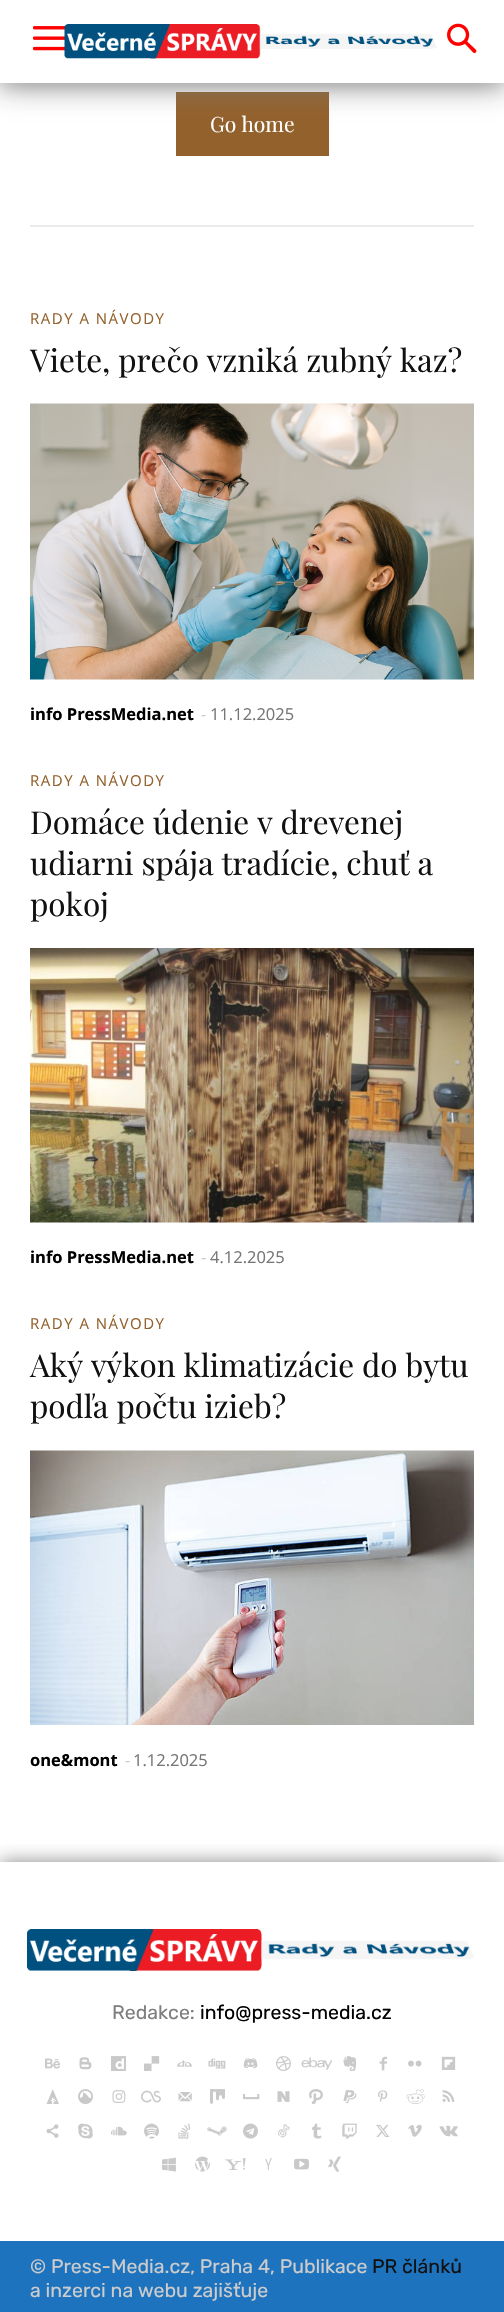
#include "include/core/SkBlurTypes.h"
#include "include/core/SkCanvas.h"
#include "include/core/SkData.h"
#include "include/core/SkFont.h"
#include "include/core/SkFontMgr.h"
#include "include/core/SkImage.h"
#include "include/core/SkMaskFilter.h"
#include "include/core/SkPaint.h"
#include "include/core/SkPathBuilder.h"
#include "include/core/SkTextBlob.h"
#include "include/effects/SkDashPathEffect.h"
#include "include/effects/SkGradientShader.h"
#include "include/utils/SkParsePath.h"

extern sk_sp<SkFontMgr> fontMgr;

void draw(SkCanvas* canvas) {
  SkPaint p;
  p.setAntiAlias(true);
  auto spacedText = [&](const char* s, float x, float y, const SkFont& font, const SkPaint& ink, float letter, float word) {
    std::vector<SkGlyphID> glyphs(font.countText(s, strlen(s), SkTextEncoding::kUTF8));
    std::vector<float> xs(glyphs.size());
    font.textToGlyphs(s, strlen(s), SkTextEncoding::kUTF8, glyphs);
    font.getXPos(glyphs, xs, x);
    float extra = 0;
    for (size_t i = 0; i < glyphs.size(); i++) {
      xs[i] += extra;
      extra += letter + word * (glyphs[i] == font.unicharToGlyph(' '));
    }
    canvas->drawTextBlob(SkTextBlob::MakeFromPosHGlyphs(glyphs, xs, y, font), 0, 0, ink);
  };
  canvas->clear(SK_ColorWHITE);
  p.setColor(SkColorSetRGB(147, 97, 44));
  canvas->drawRect(SkRect::MakeLTRB(176, 92, 329, 156), p);
  p.setColor(SkColorSetRGB(136, 136, 136));
  p.setMaskFilter(SkMaskFilter::MakeBlur(kNormal_SkBlurStyle, 16.5f));
  canvas->drawRect(SkRect::MakeLTRB(0, 0, 504, 83), p);
  p.setMaskFilter(nullptr);
  p.setColor(SK_ColorWHITE);
  canvas->drawRect(SkRect::MakeLTRB(0, 0, 504, 83), p);
  canvas->drawImageRect(SkImages::DeferredFromEncodedData(SkData::MakeFromFileName("images/1.png")), SkRect::MakeLTRB(33, 26, 66, 51), SkSamplingOptions());
  canvas->drawImageRect(SkImages::DeferredFromEncodedData(SkData::MakeFromFileName("images/2.png")), SkRect::MakeLTRB(64, 24, 437, 59), SkSamplingOptions());
  canvas->drawImageRect(SkImages::DeferredFromEncodedData(SkData::MakeFromFileName("images/3.png")), SkRect::MakeLTRB(447, 23, 477, 53), SkSamplingOptions());
  canvas->save();
  canvas->clipPath(SkPathBuilder(SkPathFillType::kEvenOdd).moveTo(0, 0).lineTo(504, 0).lineTo(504, 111).lineTo(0, 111).close().moveTo(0, 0).lineTo(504, 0).lineTo(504, 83).lineTo(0, 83).close().detach(), true);
  p.setColor(SkColorSetARGB(20, 0, 0, 0));
  p.setMaskFilter(SkMaskFilter::MakeBlur(kNormal_SkBlurStyle, 6));
  canvas->drawRect(SkRect::MakeLTRB(0, 9, 504, 92), p);
  p.setMaskFilter(nullptr);
  canvas->restore();
  p.setColor(SkColorSetRGB(235, 235, 235));
  canvas->drawRect(SkRect::MakeLTRB(30, 225, 474, 227), p);
  canvas->drawImageRect(SkImages::DeferredFromEncodedData(SkData::MakeFromFileName("images/4.png")), SkRect::MakeLTRB(30, 403, 474, 680), SkSamplingOptions());
  canvas->drawImageRect(SkImages::DeferredFromEncodedData(SkData::MakeFromFileName("images/5.png")), SkRect::MakeLTRB(30, 948, 474, 1223), SkSamplingOptions());
  canvas->drawImageRect(SkImages::DeferredFromEncodedData(SkData::MakeFromFileName("images/6.png")), SkRect::MakeLTRB(30, 1450, 474, 1725), SkSamplingOptions());
  canvas->save();
  canvas->clipRect(SkRect::MakeLTRB(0, 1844, 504, 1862));
  p.setColor(SkColorSetRGB(136, 136, 136));
  p.setMaskFilter(SkMaskFilter::MakeBlur(kNormal_SkBlurStyle, 9));
  canvas->drawRect(SkRect::MakeLTRB(0, 1862, 504, 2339), p);
  p.setMaskFilter(nullptr);
  canvas->restore();
  canvas->drawImageRect(SkImages::DeferredFromEncodedData(SkData::MakeFromFileName("images/7.png")), SkRect::MakeLTRB(27, 1929, 474, 1971), SkSamplingOptions());
  canvas->drawImageRect(SkImages::DeferredFromEncodedData(SkData::MakeFromFileName("images/8.png")), SkRect::MakeLTRB(45, 2058, 60, 2069), SkSamplingOptions());
  canvas->drawImageRect(SkImages::DeferredFromEncodedData(SkData::MakeFromFileName("images/9.png")), SkRect::MakeLTRB(79, 2057, 92, 2070), SkSamplingOptions());
  canvas->drawImageRect(SkImages::DeferredFromEncodedData(SkData::MakeFromFileName("images/10.png")), SkRect::MakeLTRB(111, 2056, 126, 2071), SkSamplingOptions());
  canvas->drawImageRect(SkImages::DeferredFromEncodedData(SkData::MakeFromFileName("images/11.png")), SkRect::MakeLTRB(144, 2056, 160, 2071), SkSamplingOptions());
  canvas->drawImageRect(SkImages::DeferredFromEncodedData(SkData::MakeFromFileName("images/12.png")), SkRect::MakeLTRB(177, 2060, 192, 2067), SkSamplingOptions());
  canvas->drawImageRect(SkImages::DeferredFromEncodedData(SkData::MakeFromFileName("images/13.png")), SkRect::MakeLTRB(208, 2058, 226, 2069), SkSamplingOptions());
  canvas->drawImageRect(SkImages::DeferredFromEncodedData(SkData::MakeFromFileName("images/14.png")), SkRect::MakeLTRB(243, 2058, 258, 2069), SkSamplingOptions());
  canvas->drawImageRect(SkImages::DeferredFromEncodedData(SkData::MakeFromFileName("images/15.png")), SkRect::MakeLTRB(276, 2056, 291, 2071), SkSamplingOptions());
  canvas->drawImageRect(SkImages::DeferredFromEncodedData(SkData::MakeFromFileName("images/16.png")), SkRect::MakeLTRB(301, 2057, 333, 2070), SkSamplingOptions());
  canvas->drawImageRect(SkImages::DeferredFromEncodedData(SkData::MakeFromFileName("images/17.png")), SkRect::MakeLTRB(343, 2056, 356, 2071), SkSamplingOptions());
  canvas->drawImageRect(SkImages::DeferredFromEncodedData(SkData::MakeFromFileName("images/18.png")), SkRect::MakeLTRB(379, 2056, 387, 2071), SkSamplingOptions());
  canvas->drawImageRect(SkImages::DeferredFromEncodedData(SkData::MakeFromFileName("images/19.png")), SkRect::MakeLTRB(408, 2060, 422, 2067), SkSamplingOptions());
  canvas->drawImageRect(SkImages::DeferredFromEncodedData(SkData::MakeFromFileName("images/20.png")), SkRect::MakeLTRB(441, 2056, 456, 2070), SkSamplingOptions());
  canvas->drawImageRect(SkImages::DeferredFromEncodedData(SkData::MakeFromFileName("images/21.png")), SkRect::MakeLTRB(46, 2089, 59, 2104), SkSamplingOptions());
  canvas->drawImageRect(SkImages::DeferredFromEncodedData(SkData::MakeFromFileName("images/22.png")), SkRect::MakeLTRB(78, 2089, 93, 2104), SkSamplingOptions());
  canvas->drawImageRect(SkImages::DeferredFromEncodedData(SkData::MakeFromFileName("images/23.png")), SkRect::MakeLTRB(112, 2090, 126, 2103), SkSamplingOptions());
  canvas->drawImageRect(SkImages::DeferredFromEncodedData(SkData::MakeFromFileName("images/24.png")), SkRect::MakeLTRB(141, 2090, 161, 2103), SkSamplingOptions());
  canvas->drawImageRect(SkImages::DeferredFromEncodedData(SkData::MakeFromFileName("images/25.png")), SkRect::MakeLTRB(178, 2092, 192, 2102), SkSamplingOptions());
  canvas->drawImageRect(SkImages::DeferredFromEncodedData(SkData::MakeFromFileName("images/26.png")), SkRect::MakeLTRB(210, 2089, 225, 2104), SkSamplingOptions());
  canvas->drawImageRect(SkImages::DeferredFromEncodedData(SkData::MakeFromFileName("images/27.png")), SkRect::MakeLTRB(243, 2094, 260, 2100), SkSamplingOptions());
  canvas->drawImageRect(SkImages::DeferredFromEncodedData(SkData::MakeFromFileName("images/28.png")), SkRect::MakeLTRB(277, 2091, 290, 2102), SkSamplingOptions());
  canvas->drawImageRect(SkImages::DeferredFromEncodedData(SkData::MakeFromFileName("images/29.png")), SkRect::MakeLTRB(309, 2089, 323, 2104), SkSamplingOptions());
  canvas->drawImageRect(SkImages::DeferredFromEncodedData(SkData::MakeFromFileName("images/30.png")), SkRect::MakeLTRB(343, 2090, 357, 2103), SkSamplingOptions());
  canvas->drawImageRect(SkImages::DeferredFromEncodedData(SkData::MakeFromFileName("images/31.png")), SkRect::MakeLTRB(378, 2090, 388, 2102), SkSamplingOptions());
  canvas->drawImageRect(SkImages::DeferredFromEncodedData(SkData::MakeFromFileName("images/32.png")), SkRect::MakeLTRB(406, 2089, 425, 2104), SkSamplingOptions());
  canvas->drawImageRect(SkImages::DeferredFromEncodedData(SkData::MakeFromFileName("images/33.png")), SkRect::MakeLTRB(442, 2090, 455, 2102), SkSamplingOptions());
  canvas->drawImageRect(SkImages::DeferredFromEncodedData(SkData::MakeFromFileName("images/34.png")), SkRect::MakeLTRB(46, 2124, 59, 2138), SkSamplingOptions());
  canvas->drawImageRect(SkImages::DeferredFromEncodedData(SkData::MakeFromFileName("images/35.png")), SkRect::MakeLTRB(78, 2123, 93, 2139), SkSamplingOptions());
  canvas->drawImageRect(SkImages::DeferredFromEncodedData(SkData::MakeFromFileName("images/36.png")), SkRect::MakeLTRB(111, 2126, 127, 2136), SkSamplingOptions());
  canvas->drawImageRect(SkImages::DeferredFromEncodedData(SkData::MakeFromFileName("images/37.png")), SkRect::MakeLTRB(144, 2123, 159, 2139), SkSamplingOptions());
  canvas->drawImageRect(SkImages::DeferredFromEncodedData(SkData::MakeFromFileName("images/38.png")), SkRect::MakeLTRB(178, 2123, 191, 2139), SkSamplingOptions());
  canvas->drawImageRect(SkImages::DeferredFromEncodedData(SkData::MakeFromFileName("images/39.png")), SkRect::MakeLTRB(207, 2126, 227, 2136), SkSamplingOptions());
  canvas->drawImageRect(SkImages::DeferredFromEncodedData(SkData::MakeFromFileName("images/40.png")), SkRect::MakeLTRB(243, 2123, 258, 2139), SkSamplingOptions());
  canvas->drawImageRect(SkImages::DeferredFromEncodedData(SkData::MakeFromFileName("images/41.png")), SkRect::MakeLTRB(278, 2124, 290, 2138), SkSamplingOptions());
  canvas->drawImageRect(SkImages::DeferredFromEncodedData(SkData::MakeFromFileName("images/42.png")), SkRect::MakeLTRB(312, 2123, 322, 2139), SkSamplingOptions());
  canvas->drawImageRect(SkImages::DeferredFromEncodedData(SkData::MakeFromFileName("images/43.png")), SkRect::MakeLTRB(342, 2123, 357, 2139), SkSamplingOptions());
  canvas->drawImageRect(SkImages::DeferredFromEncodedData(SkData::MakeFromFileName("images/44.png")), SkRect::MakeLTRB(376, 2124, 390, 2137), SkSamplingOptions());
  canvas->drawImageRect(SkImages::DeferredFromEncodedData(SkData::MakeFromFileName("images/45.png")), SkRect::MakeLTRB(408, 2124, 422, 2137), SkSamplingOptions());
  canvas->drawImageRect(SkImages::DeferredFromEncodedData(SkData::MakeFromFileName("images/46.png")), SkRect::MakeLTRB(439, 2125, 458, 2137), SkSamplingOptions());
  canvas->drawImageRect(SkImages::DeferredFromEncodedData(SkData::MakeFromFileName("images/47.png")), SkRect::MakeLTRB(162, 2157, 176, 2172), SkSamplingOptions());
  canvas->drawImageRect(SkImages::DeferredFromEncodedData(SkData::MakeFromFileName("images/48.png")), SkRect::MakeLTRB(195, 2156, 210, 2172), SkSamplingOptions());
  canvas->drawImageRect(SkImages::DeferredFromEncodedData(SkData::MakeFromFileName("images/49.png")), SkRect::MakeLTRB(225, 2158, 246, 2170), SkSamplingOptions());
  canvas->drawImageRect(SkImages::DeferredFromEncodedData(SkData::MakeFromFileName("images/50.png")), SkRect::MakeLTRB(265, 2158, 272, 2170), SkSamplingOptions());
  canvas->drawImageRect(SkImages::DeferredFromEncodedData(SkData::MakeFromFileName("images/51.png")), SkRect::MakeLTRB(294, 2158, 309, 2170), SkSamplingOptions());
  canvas->drawImageRect(SkImages::DeferredFromEncodedData(SkData::MakeFromFileName("images/52.png")), SkRect::MakeLTRB(328, 2156, 341, 2172), SkSamplingOptions());
  p.setColor(SkColorSetRGB(30, 115, 190));
  canvas->drawRect(SkRect::MakeLTRB(0, 2241, 504, 2312), p);
  SkFont font1(fontMgr->matchFamilyStyle("Playfair Display", SkFontStyle::Normal()), 21);
  font1.setSubpixel(true);
  p.setColor(SK_ColorWHITE);
  canvas->drawString("Go home", 210, 132, font1, p);
  SkFont font2(fontMgr->matchFamilyStyle("Open Sans", SkFontStyle::Normal()), 15);
  font2.setSubpixel(true);
  p.setColor(SkColorSetRGB(147, 97, 44));
  spacedText("RADY A NÁVODY", 30, 324, font2, p, 1.5f, 0);
  SkFont font3(fontMgr->matchFamilyStyle("Playfair Display", SkFontStyle::Normal()), 31.5f);
  font3.setSubpixel(true);
  p.setColor(SkColorSetRGB(17, 17, 17));
  canvas->drawString("Viete, prečo vzniká zubný kaz?", 30, 372, font3, p);
  SkFont font4(fontMgr->matchFamilyStyle("Open Sans", SkFontStyle::Bold()), 16.5f);
  font4.setSubpixel(true);
  p.setColor(SK_ColorBLACK);
  canvas->drawString("info PressMedia.net", 30, 720, font4, p);
  SkFont font5(fontMgr->matchFamilyStyle("Open Sans", SkFontStyle::Normal()), 16.5f);
  font5.setSubpixel(true);
  p.setColor(SkColorSetRGB(204, 204, 204));
  canvas->drawString("-", 201, 720, font5, p);
  p.setColor(SkColorSetRGB(118, 118, 118));
  canvas->drawString("11.12.2025", 210, 720, font5, p);
  p.setColor(SkColorSetRGB(147, 97, 44));
  spacedText("RADY A NÁVODY", 30, 786, font2, p, 1.5f, 0);
  p.setColor(SkColorSetRGB(17, 17, 17));
  canvas->drawString("Domáce údenie v drevenej", 30, 834, font3, p);
  canvas->drawString("udiarni spája tradície, chuť a", 30, 875, font3, p);
  canvas->drawString("pokoj", 30, 916, font3, p);
  p.setColor(SK_ColorBLACK);
  canvas->drawString("info PressMedia.net", 30, 1263, font4, p);
  p.setColor(SkColorSetRGB(204, 204, 204));
  canvas->drawString("-", 201, 1263, font5, p);
  p.setColor(SkColorSetRGB(118, 118, 118));
  canvas->drawString("4.12.2025", 210, 1263, font5, p);
  p.setColor(SkColorSetRGB(147, 97, 44));
  spacedText("RADY A NÁVODY", 30, 1329, font2, p, 1.5f, 0);
  p.setColor(SkColorSetRGB(17, 17, 17));
  canvas->drawString("Aký výkon klimatizácie do bytu", 30, 1377, font3, p);
  canvas->drawString("podľa počtu izieb?", 30, 1418, font3, p);
  p.setColor(SK_ColorBLACK);
  canvas->drawString("one&mont", 30, 1766, font4, p);
  p.setColor(SkColorSetRGB(204, 204, 204));
  canvas->drawString("-", 125, 1766, font5, p);
  p.setColor(SkColorSetRGB(118, 118, 118));
  canvas->drawString("1.12.2025", 133, 1766, font5, p);
  SkFont font6(fontMgr->matchFamilyStyle("Rubik", SkFontStyle(300, SkFontStyle::kNormal_Width, SkFontStyle::kUpright_Slant)), 19.5f);
  font6.setSubpixel(true);
  p.setColor(SkColorSetRGB(127, 127, 127));
  canvas->drawString("Redakce:", 112, 2019, font6, p);
  p.setColor(SK_ColorBLACK);
  canvas->drawString("info@press-media.cz", 200, 2019, font6, p);
  p.setColor(SkColorSetRGB(204, 204, 204));
  canvas->drawString("© Press-Media.cz, Praha 4, Publikace", 30, 2273, font6, p);
  p.setColor(SkColorSetRGB(17, 17, 17));
  canvas->drawString("PR článků", 372, 2273, font6, p);
  p.setColor(SkColorSetRGB(204, 204, 204));
  canvas->drawString("a inzerci na webu zajišťuje", 30, 2297, font6, p);
}
